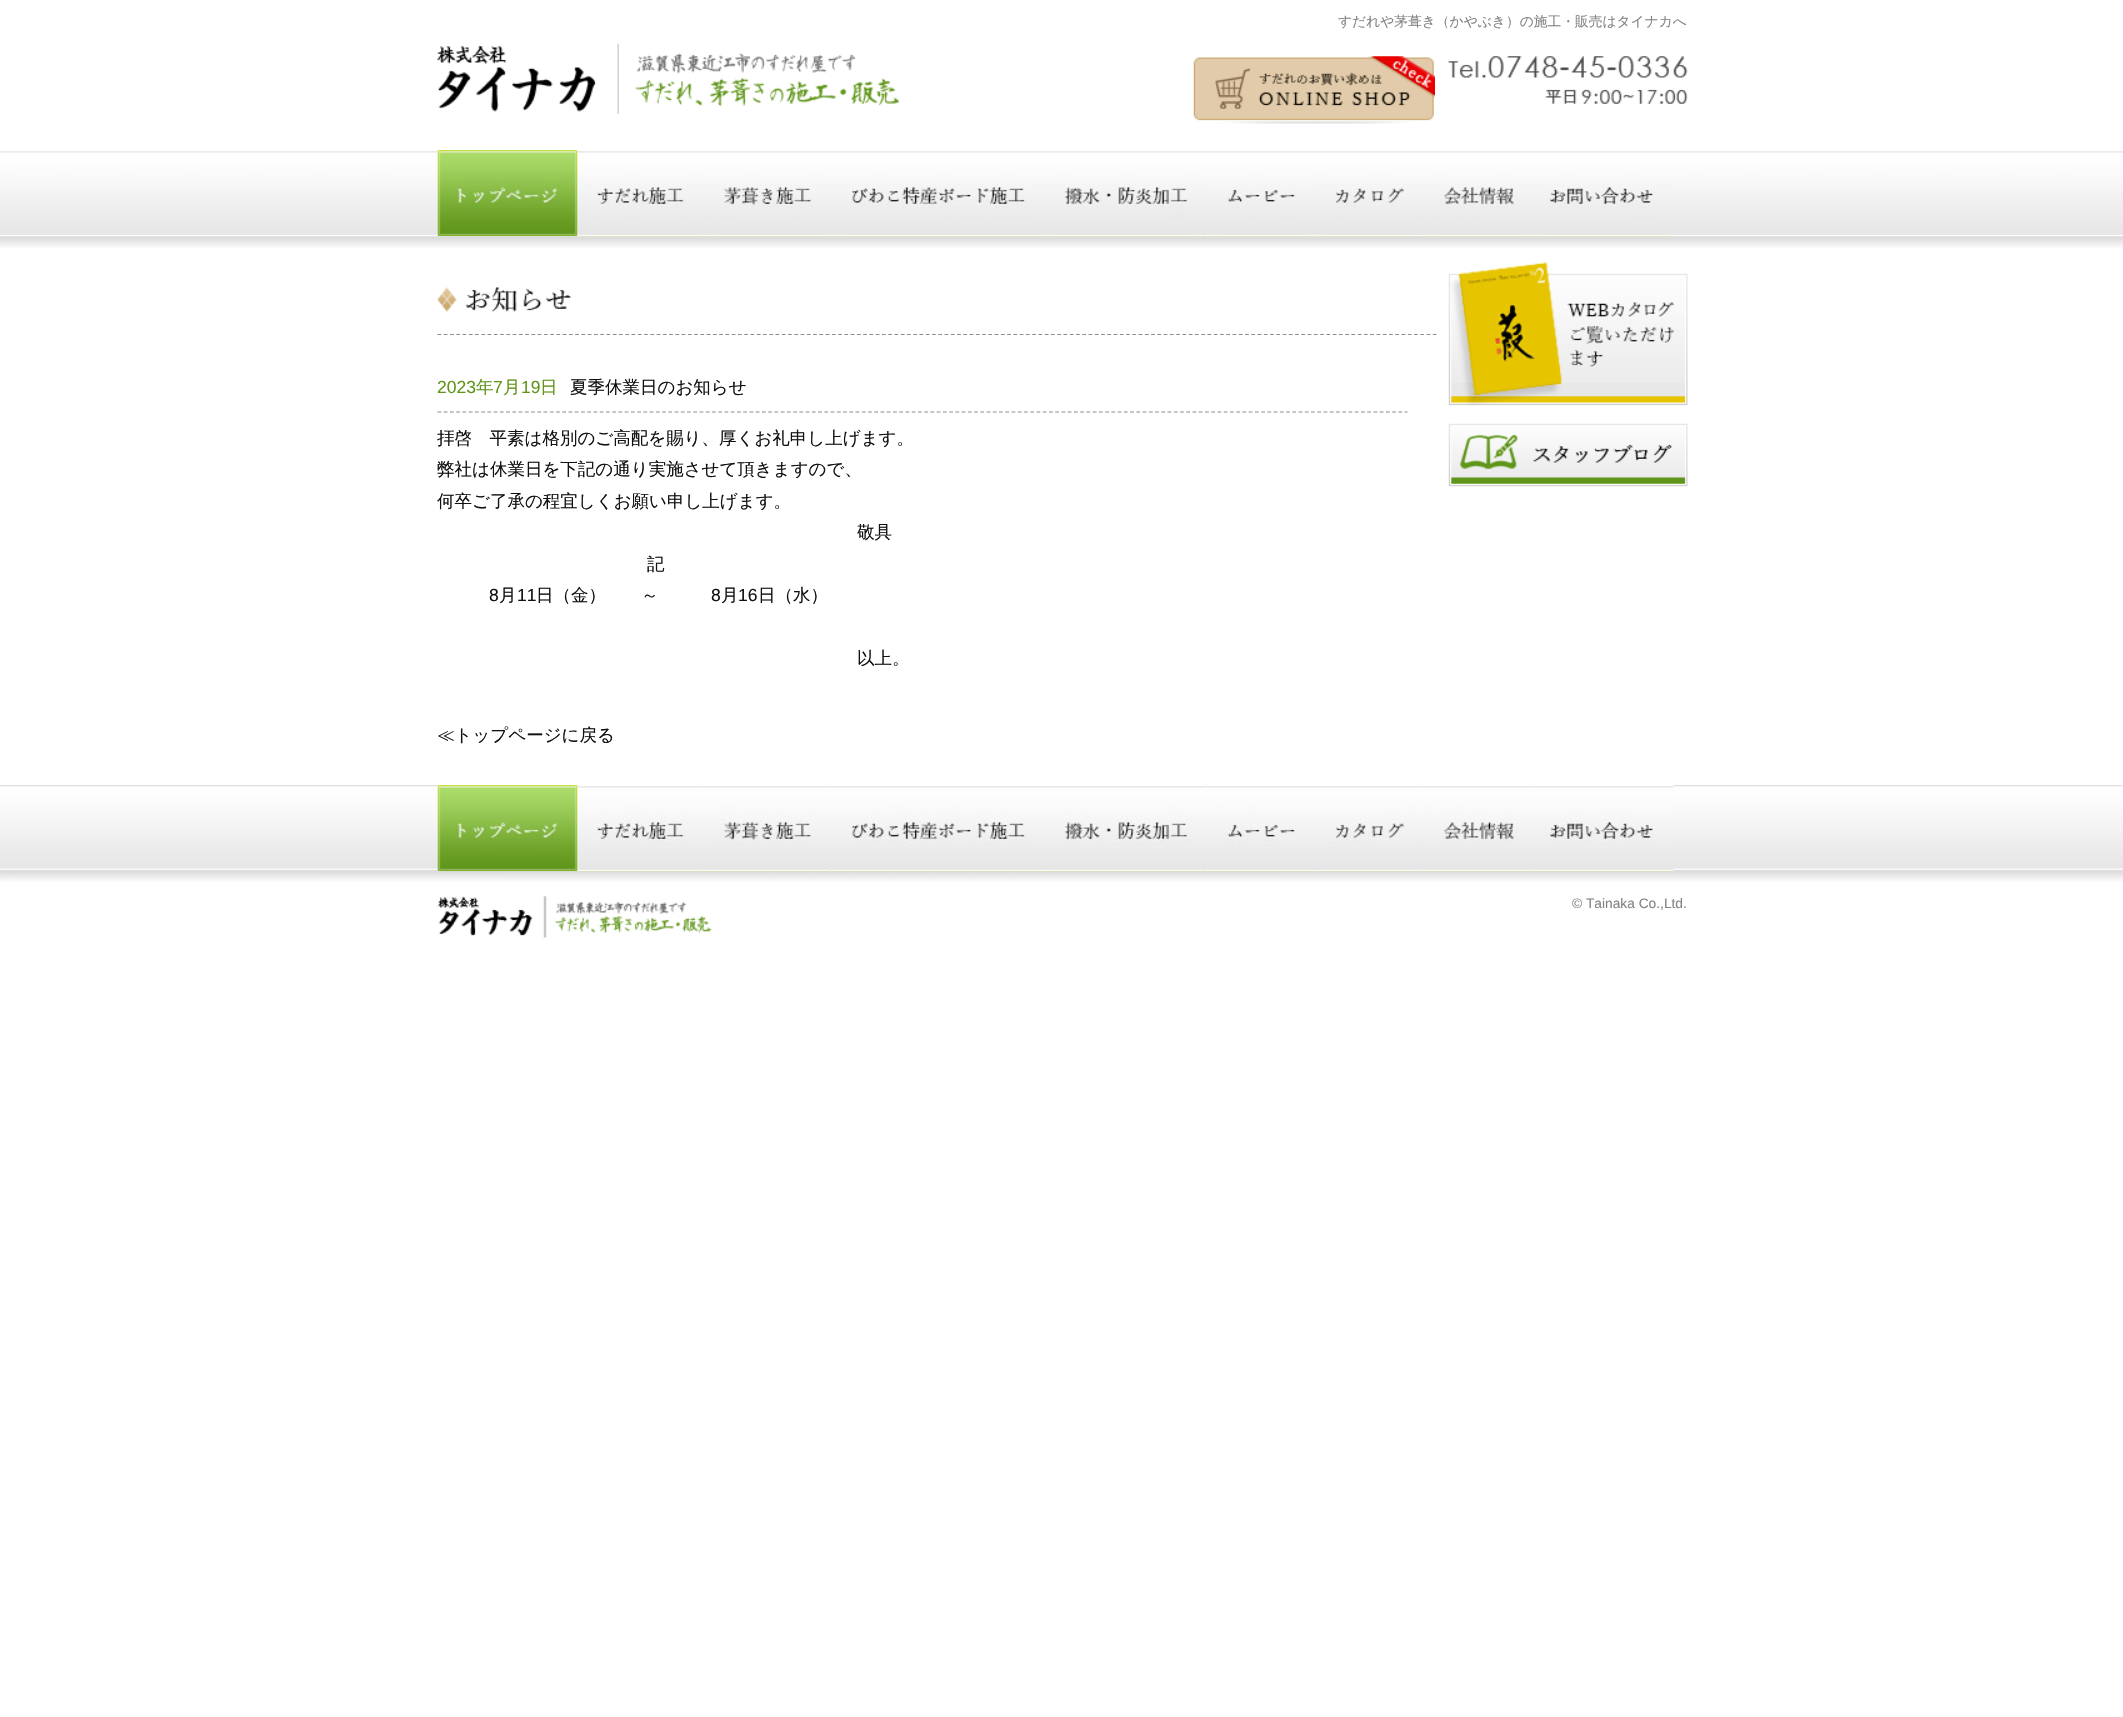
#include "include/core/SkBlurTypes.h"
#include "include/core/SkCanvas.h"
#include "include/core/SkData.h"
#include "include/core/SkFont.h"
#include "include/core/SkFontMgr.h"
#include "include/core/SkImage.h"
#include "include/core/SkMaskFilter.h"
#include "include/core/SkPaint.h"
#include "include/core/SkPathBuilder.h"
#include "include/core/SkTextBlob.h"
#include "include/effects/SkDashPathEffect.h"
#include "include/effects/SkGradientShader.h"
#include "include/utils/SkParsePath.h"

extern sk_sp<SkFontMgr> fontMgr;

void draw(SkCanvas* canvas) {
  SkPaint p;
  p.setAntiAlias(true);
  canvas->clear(SK_ColorWHITE);
  canvas->drawImageRect(SkImages::DeferredFromEncodedData(SkData::MakeFromFileName("images/1.png")), SkRect::MakeLTRB(0, 151, 2123, 248), SkSamplingOptions());
  canvas->drawImageRect(SkImages::DeferredFromEncodedData(SkData::MakeFromFileName("images/2.png")), SkRect::MakeLTRB(437, 43, 899, 114), SkSamplingOptions());
  canvas->drawImageRect(SkImages::DeferredFromEncodedData(SkData::MakeFromFileName("images/3.png")), SkRect::MakeLTRB(1193, 56, 1435, 124), SkSamplingOptions());
  canvas->drawImageRect(SkImages::DeferredFromEncodedData(SkData::MakeFromFileName("images/4.png")), SkRect::MakeLTRB(1447, 56, 1688, 104), SkSamplingOptions());
  canvas->drawImageRect(SkImages::DeferredFromEncodedData(SkData::MakeFromFileName("images/6.png")), SkRect::MakeLTRB(577, 183, 704, 237), SkSamplingOptions());
  canvas->drawImageRect(SkImages::DeferredFromEncodedData(SkData::MakeFromFileName("images/5.png")), SkRect::MakeLTRB(437, 150, 578, 237), SkSamplingOptions());
  canvas->drawImageRect(SkImages::DeferredFromEncodedData(SkData::MakeFromFileName("images/7.png")), SkRect::MakeLTRB(704, 180, 831, 237), SkSamplingOptions());
  canvas->drawImageRect(SkImages::DeferredFromEncodedData(SkData::MakeFromFileName("images/8.png")), SkRect::MakeLTRB(831, 180, 1045, 237), SkSamplingOptions());
  canvas->drawImageRect(SkImages::DeferredFromEncodedData(SkData::MakeFromFileName("images/9.png")), SkRect::MakeLTRB(1045, 184, 1207, 237), SkSamplingOptions());
  canvas->drawImageRect(SkImages::DeferredFromEncodedData(SkData::MakeFromFileName("images/10.png")), SkRect::MakeLTRB(1207, 189, 1315, 237), SkSamplingOptions());
  canvas->drawImageRect(SkImages::DeferredFromEncodedData(SkData::MakeFromFileName("images/11.png")), SkRect::MakeLTRB(1315, 184, 1424, 237), SkSamplingOptions());
  canvas->drawImageRect(SkImages::DeferredFromEncodedData(SkData::MakeFromFileName("images/12.png")), SkRect::MakeLTRB(1424, 180, 1534, 237), SkSamplingOptions());
  canvas->drawImageRect(SkImages::DeferredFromEncodedData(SkData::MakeFromFileName("images/13.png")), SkRect::MakeLTRB(1534, 184, 1674, 237), SkSamplingOptions());
  p.setStyle(SkPaint::kStroke_Style);
  p.setStrokeWidth(1.2f);
  p.setColor(SkColorSetRGB(140, 140, 140));
  p.setPathEffect(SkDashPathEffect::Make({{3.75f, 2.51f}}, 0));
  canvas->drawPath(SkPathBuilder().moveTo(437.5f, 334.5f).lineTo(1437.5f, 334.5f).detach(), p);
  p.setPathEffect(nullptr);
  canvas->drawImageRect(SkImages::DeferredFromEncodedData(SkData::MakeFromFileName("images/14.png")), SkRect::MakeLTRB(437, 287, 572, 312), SkSamplingOptions());
  p.setPathEffect(SkDashPathEffect::Make({{3.75f, 2.49f}}, 0));
  canvas->drawPath(SkPathBuilder().moveTo(437.5f, 412).lineTo(1407.5f, 412).detach(), p);
  p.setPathEffect(nullptr);
  canvas->drawImageRect(SkImages::DeferredFromEncodedData(SkData::MakeFromFileName("images/15.png")), SkRect::MakeLTRB(1448, 262, 1688, 406), SkSamplingOptions());
  canvas->drawImageRect(SkImages::DeferredFromEncodedData(SkData::MakeFromFileName("images/16.png")), SkRect::MakeLTRB(1448, 423, 1688, 487), SkSamplingOptions());
  canvas->drawImageRect(SkImages::DeferredFromEncodedData(SkData::MakeFromFileName("images/17.png")), SkRect::MakeLTRB(0, 785, 2123, 882), SkSamplingOptions());
  canvas->drawImageRect(SkImages::DeferredFromEncodedData(SkData::MakeFromFileName("images/19.png")), SkRect::MakeLTRB(577, 785, 704, 872), SkSamplingOptions());
  canvas->drawImageRect(SkImages::DeferredFromEncodedData(SkData::MakeFromFileName("images/18.png")), SkRect::MakeLTRB(437, 785, 578, 872), SkSamplingOptions());
  canvas->drawImageRect(SkImages::DeferredFromEncodedData(SkData::MakeFromFileName("images/20.png")), SkRect::MakeLTRB(704, 785, 831, 872), SkSamplingOptions());
  canvas->drawImageRect(SkImages::DeferredFromEncodedData(SkData::MakeFromFileName("images/21.png")), SkRect::MakeLTRB(831, 785, 1045, 872), SkSamplingOptions());
  canvas->drawImageRect(SkImages::DeferredFromEncodedData(SkData::MakeFromFileName("images/22.png")), SkRect::MakeLTRB(1045, 785, 1208, 872), SkSamplingOptions());
  canvas->drawImageRect(SkImages::DeferredFromEncodedData(SkData::MakeFromFileName("images/23.png")), SkRect::MakeLTRB(1207, 785, 1315, 872), SkSamplingOptions());
  canvas->drawImageRect(SkImages::DeferredFromEncodedData(SkData::MakeFromFileName("images/24.png")), SkRect::MakeLTRB(1315, 785, 1424, 872), SkSamplingOptions());
  canvas->drawImageRect(SkImages::DeferredFromEncodedData(SkData::MakeFromFileName("images/25.png")), SkRect::MakeLTRB(1424, 785, 1534, 872), SkSamplingOptions());
  canvas->drawImageRect(SkImages::DeferredFromEncodedData(SkData::MakeFromFileName("images/26.png")), SkRect::MakeLTRB(1534, 785, 1674, 872), SkSamplingOptions());
  canvas->drawImageRect(SkImages::DeferredFromEncodedData(SkData::MakeFromFileName("images/27.png")), SkRect::MakeLTRB(437, 896, 712, 938), SkSamplingOptions());
  SkFont font1(fontMgr->matchFamilyStyle("WenQuanYi Zen Hei", SkFontStyle(500, SkFontStyle::kNormal_Width, SkFontStyle::kUpright_Slant)), 13.75f);
  font1.setSubpixel(true);
  p.setStyle(SkPaint::kFill_Style);
  p.setColor(SkColorSetRGB(131, 131, 131));
  canvas->drawString("すだれや茅葺き（かやぶき）の施工・販売はタイナカへ", 1338, 26, font1, p);
  SkFont font2(fontMgr->matchFamilyStyle("Liberation Sans", SkFontStyle::Normal()), 17.5f);
  font2.setSubpixel(true);
  p.setColor(SkColorSetRGB(95, 149, 25));
  canvas->drawString("2023", 437, 393, font2, p);
  SkFont font3(fontMgr->matchFamilyStyle("WenQuanYi Zen Hei", SkFontStyle(500, SkFontStyle::kNormal_Width, SkFontStyle::kUpright_Slant)), 17.5f);
  font3.setSubpixel(true);
  canvas->drawString("年", 476, 393, font3, p);
  canvas->drawString("7", 493, 393, font2, p);
  canvas->drawString("月", 503, 393, font3, p);
  canvas->drawString("19", 521, 393, font2, p);
  canvas->drawString("日", 540, 393, font3, p);
  p.setColor(SkColorSetRGB(17, 17, 17));
  canvas->drawString("夏季休業日のお知らせ", 570, 393, font3, p);
  canvas->drawString("拝啓　平素は格別のご高配を賜り、厚くお礼申し上げます。", 437, 444, font3, p);
  canvas->drawString("弊社は休業日を下記の通り実施させて頂きますので、", 437, 475, font3, p);
  canvas->drawString("何卒ご了承の程宜しくお願い申し上げます。", 437, 507, font3, p);
  canvas->drawString("敬具", 857, 538, font3, p);
  canvas->drawString("記", 647, 570, font3, p);
  canvas->drawString("8", 489, 601, font2, p);
  canvas->drawString("月", 499, 601, font3, p);
  canvas->drawString("11", 517, 601, font2, p);
  canvas->drawString("日（金）　　～", 536, 601, font3, p);
  canvas->drawString("8", 711, 601, font2, p);
  canvas->drawString("月", 721, 601, font3, p);
  canvas->drawString("16", 738, 601, font2, p);
  canvas->drawString("日（水）", 758, 601, font3, p);
  canvas->drawString("以上。", 857, 664, font3, p);
  canvas->drawString("≪トップページに戻る", 437, 741, font3, p);
  SkFont font4(fontMgr->matchFamilyStyle("Liberation Sans", SkFontStyle::Normal()), 13.75f);
  font4.setSubpixel(true);
  p.setColor(SkColorSetRGB(131, 131, 131));
  canvas->drawString("© Tainaka Co.,Ltd.", 1572, 908, font4, p);
}
